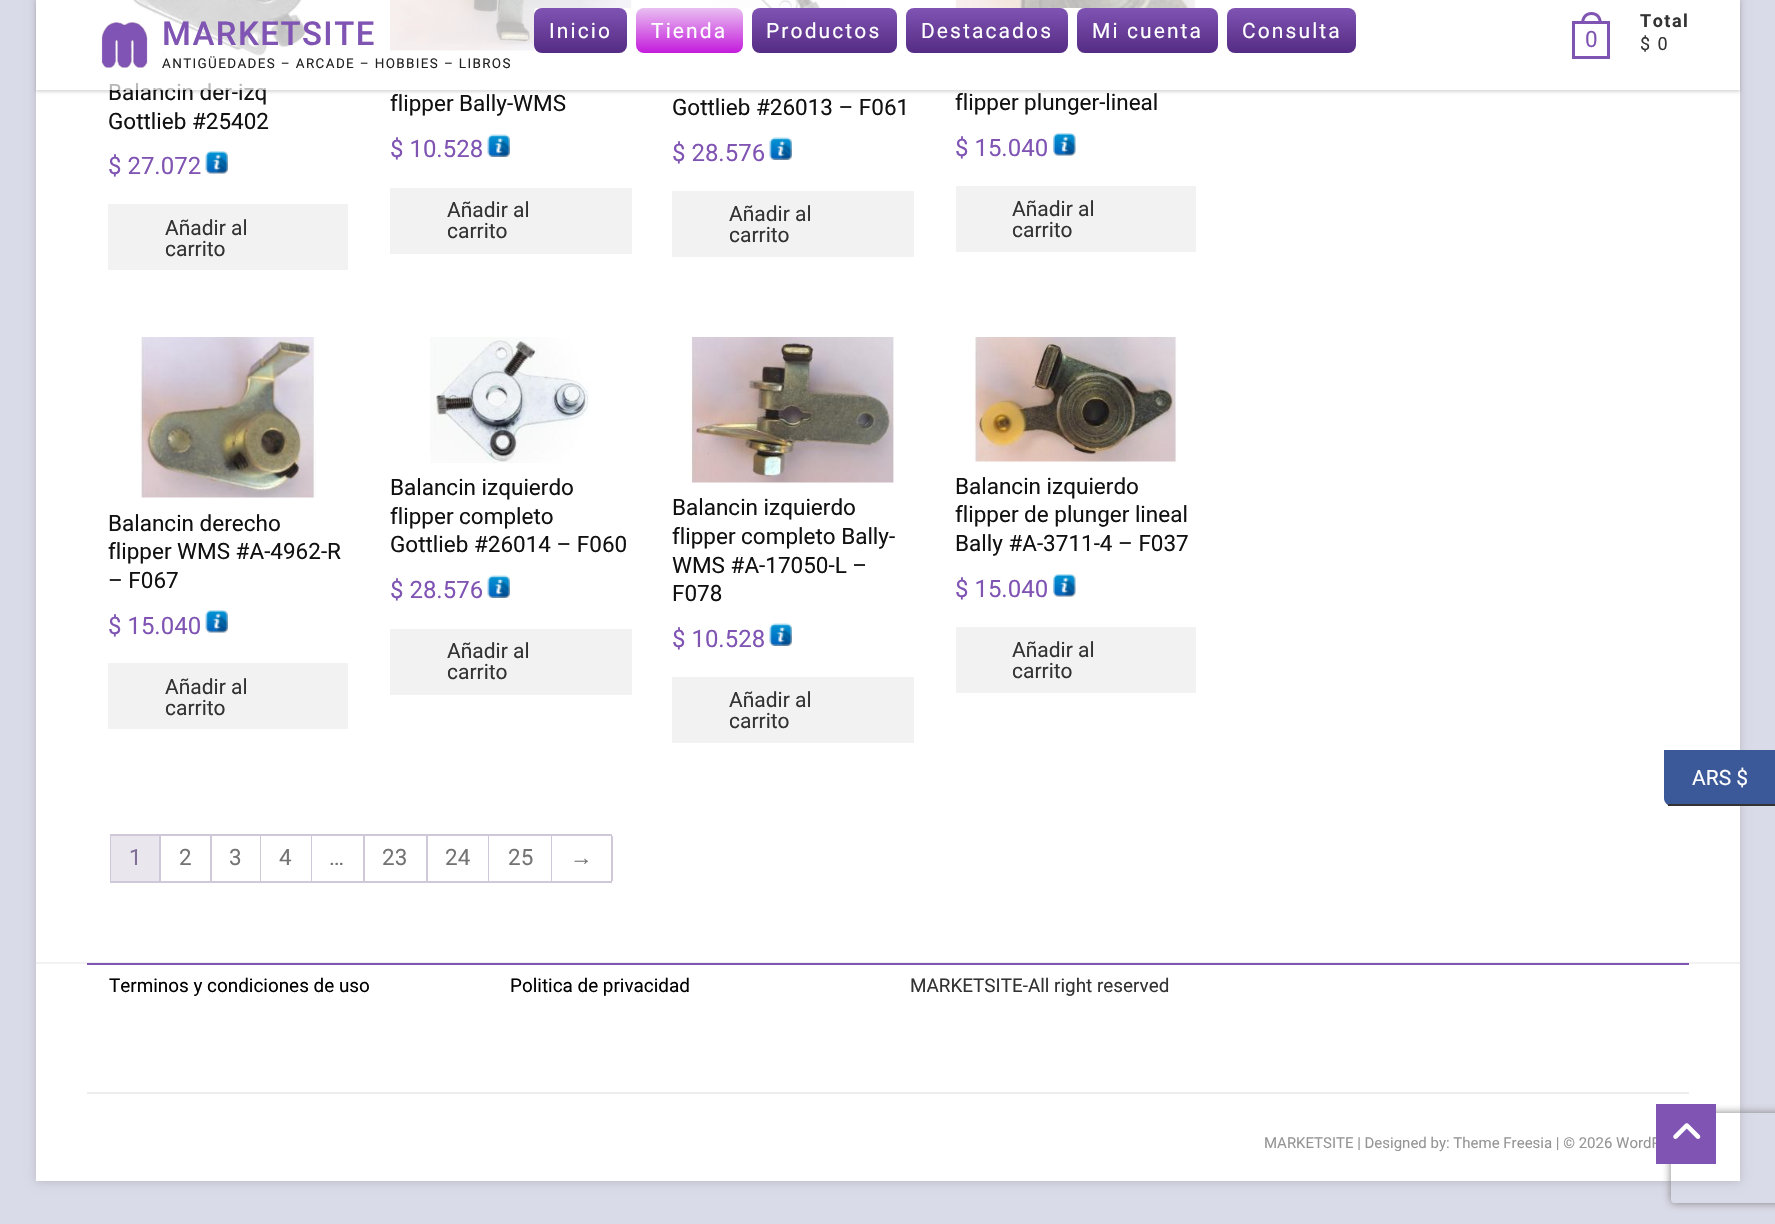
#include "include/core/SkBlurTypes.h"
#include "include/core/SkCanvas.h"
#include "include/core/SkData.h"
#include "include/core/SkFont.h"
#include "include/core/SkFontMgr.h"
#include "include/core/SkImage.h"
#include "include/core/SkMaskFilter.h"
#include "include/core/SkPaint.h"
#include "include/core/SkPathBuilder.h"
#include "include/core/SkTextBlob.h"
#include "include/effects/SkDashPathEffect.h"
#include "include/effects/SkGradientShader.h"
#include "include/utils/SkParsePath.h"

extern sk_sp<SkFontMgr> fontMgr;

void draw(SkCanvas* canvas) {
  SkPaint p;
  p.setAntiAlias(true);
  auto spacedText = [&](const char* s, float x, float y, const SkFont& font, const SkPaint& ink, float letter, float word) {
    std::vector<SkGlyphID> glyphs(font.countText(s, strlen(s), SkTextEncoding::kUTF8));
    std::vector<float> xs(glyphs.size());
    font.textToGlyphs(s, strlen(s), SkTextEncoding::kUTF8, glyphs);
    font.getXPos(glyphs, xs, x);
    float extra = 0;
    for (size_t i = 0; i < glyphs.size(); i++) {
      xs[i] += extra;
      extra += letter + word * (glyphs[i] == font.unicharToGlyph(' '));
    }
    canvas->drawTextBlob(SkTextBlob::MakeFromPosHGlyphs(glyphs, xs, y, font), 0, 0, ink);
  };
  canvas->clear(SkColorSetRGB(218, 219, 232));
  p.setColor(SkColorSetARGB(38, 0, 0, 0));
  p.setMaskFilter(SkMaskFilter::MakeBlur(kNormal_SkBlurStyle, 4.5f));
  canvas->drawRect(SkRect::MakeLTRB(36, -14, 1740, 1182), p);
  p.setMaskFilter(nullptr);
  p.setColor(SK_ColorWHITE);
  canvas->drawRect(SkRect::MakeLTRB(36, 0, 1740, 1181), p);
  canvas->drawImageRect(SkImages::DeferredFromEncodedData(SkData::MakeFromFileName("images/2.png")), SkRect::MakeLTRB(131, 0, 307, 57), SkSamplingOptions());
  canvas->drawImageRect(SkImages::DeferredFromEncodedData(SkData::MakeFromFileName("images/4.png")), SkRect::MakeLTRB(390, 0, 632, 51), SkSamplingOptions());
  canvas->drawImageRect(SkImages::DeferredFromEncodedData(SkData::MakeFromFileName("images/6.png")), SkRect::MakeLTRB(712, 0, 846, 8), SkSamplingOptions());
  canvas->drawImageRect(SkImages::DeferredFromEncodedData(SkData::MakeFromFileName("images/7.png")), SkRect::MakeLTRB(955, 0, 1196, 8), SkSamplingOptions());
  canvas->save();
  canvas->clipPath(SkPathBuilder(SkPathFillType::kEvenOdd).moveTo(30, 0).lineTo(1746, 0).lineTo(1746, 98).lineTo(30, 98).close().moveTo(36, 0).lineTo(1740, 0).lineTo(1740, 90).lineTo(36, 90).close().detach(), true);
  p.setColor(SkColorSetARGB(38, 0, 0, 0));
  p.setMaskFilter(SkMaskFilter::MakeBlur(kNormal_SkBlurStyle, 1.5f));
  canvas->drawRect(SkRect::MakeLTRB(36, 2, 1740, 92), p);
  p.setMaskFilter(nullptr);
  canvas->restore();
  p.setStyle(SkPaint::kStroke_Style);
  p.setStrokeWidth(3);
  p.setColor(SkColorSetRGB(127, 84, 179));
  canvas->drawRect(SkRect::MakeLTRB(1573.5f, 22.5f, 1608.5f, 57.5f), p);
  p.setStyle(SkPaint::kFill_Style);
  canvas->drawPath(SkPathBuilder(SkPathFillType::kEvenOdd).moveTo(1591.5f, 12).cubicTo(1598.5f, 12, 1602, 17.5f, 1602, 24).lineTo(1581, 24).cubicTo(1581, 17.5f, 1584.5f, 12, 1591.5f, 12).close().moveTo(1591.5f, 15).cubicTo(1597, 15, 1599, 19.5f, 1599, 24).lineTo(1584, 24).cubicTo(1584, 19.5f, 1586, 15, 1591.5f, 15).close().detach(), p);
  canvas->drawImageRect(SkImages::DeferredFromEncodedData(SkData::MakeFromFileName("images/3.png")), SkRect::MakeLTRB(205, 151, 228, 174), SkSamplingOptions());
  p.setColor(SkColorSetRGB(242, 242, 242));
  canvas->drawRect(SkRect::MakeLTRB(108, 204, 348, 270), p);
  canvas->drawImageRect(SkImages::DeferredFromEncodedData(SkData::MakeFromFileName("images/5.png")), SkRect::MakeLTRB(487, 134, 510, 157), SkSamplingOptions());
  canvas->drawRect(SkRect::MakeLTRB(390, 188, 632, 254), p);
  canvas->drawImageRect(SkImages::DeferredFromEncodedData(SkData::MakeFromFileName("images/5.png")), SkRect::MakeLTRB(769, 137, 792, 160), SkSamplingOptions());
  canvas->drawRect(SkRect::MakeLTRB(672, 191, 914, 257), p);
  canvas->drawImageRect(SkImages::DeferredFromEncodedData(SkData::MakeFromFileName("images/8.png")), SkRect::MakeLTRB(1053, 133, 1076, 156), SkSamplingOptions());
  canvas->drawRect(SkRect::MakeLTRB(956, 186, 1196, 252), p);
  canvas->drawImageRect(SkImages::DeferredFromEncodedData(SkData::MakeFromFileName("images/9.png")), SkRect::MakeLTRB(140, 337, 316, 498), SkSamplingOptions());
  canvas->drawImageRect(SkImages::DeferredFromEncodedData(SkData::MakeFromFileName("images/3.png")), SkRect::MakeLTRB(205, 610, 228, 633), SkSamplingOptions());
  canvas->drawRect(SkRect::MakeLTRB(108, 663, 348, 729), p);
  canvas->drawImageRect(SkImages::DeferredFromEncodedData(SkData::MakeFromFileName("images/10.png")), SkRect::MakeLTRB(430, 337, 590, 463), SkSamplingOptions());
  canvas->drawImageRect(SkImages::DeferredFromEncodedData(SkData::MakeFromFileName("images/5.png")), SkRect::MakeLTRB(487, 575, 510, 598), SkSamplingOptions());
  canvas->drawRect(SkRect::MakeLTRB(390, 629, 632, 695), p);
  canvas->drawImageRect(SkImages::DeferredFromEncodedData(SkData::MakeFromFileName("images/11.png")), SkRect::MakeLTRB(689, 337, 894, 483), SkSamplingOptions());
  canvas->drawImageRect(SkImages::DeferredFromEncodedData(SkData::MakeFromFileName("images/5.png")), SkRect::MakeLTRB(769, 623, 792, 646), SkSamplingOptions());
  canvas->drawRect(SkRect::MakeLTRB(672, 677, 914, 743), p);
  canvas->drawImageRect(SkImages::DeferredFromEncodedData(SkData::MakeFromFileName("images/12.png")), SkRect::MakeLTRB(973, 337, 1177, 462), SkSamplingOptions());
  canvas->drawImageRect(SkImages::DeferredFromEncodedData(SkData::MakeFromFileName("images/8.png")), SkRect::MakeLTRB(1053, 574, 1076, 597), SkSamplingOptions());
  canvas->drawRect(SkRect::MakeLTRB(956, 627, 1196, 693), p);
  p.setColor(SkColorSetRGB(207, 200, 216));
  canvas->drawRect(SkRect::MakeLTRB(110, 834, 612, 836), p);
  canvas->drawRect(SkRect::MakeLTRB(110, 881, 612, 883), p);
  canvas->drawRect(SkRect::MakeLTRB(110, 834, 112, 882), p);
  canvas->drawRect(SkRect::MakeLTRB(159, 836, 161, 881), p);
  p.setColor(SkColorSetRGB(233, 230, 237));
  canvas->drawRect(SkRect::MakeLTRB(111, 836, 159, 881), p);
  p.setColor(SkColorSetRGB(207, 200, 216));
  canvas->drawRect(SkRect::MakeLTRB(210, 836, 212, 881), p);
  canvas->drawRect(SkRect::MakeLTRB(260, 836, 261, 881), p);
  canvas->drawRect(SkRect::MakeLTRB(311, 836, 312, 881), p);
  canvas->drawRect(SkRect::MakeLTRB(363, 836, 365, 881), p);
  canvas->drawRect(SkRect::MakeLTRB(426, 836, 428, 881), p);
  canvas->drawRect(SkRect::MakeLTRB(488, 836, 489, 881), p);
  canvas->drawRect(SkRect::MakeLTRB(551, 836, 552, 881), p);
  canvas->drawRect(SkRect::MakeLTRB(611, 836, 613, 881), p);
  p.setColor(SkColorSetRGB(242, 242, 242));
  canvas->drawRect(SkRect::MakeLTRB(36, 962, 1740, 964), p);
  p.setColor(SkColorSetRGB(127, 84, 179));
  canvas->drawRect(SkRect::MakeLTRB(87, 963, 1689, 965), p);
  p.setColor(SkColorSetRGB(237, 237, 237));
  canvas->drawRect(SkRect::MakeLTRB(87, 1092, 1689, 1094), p);
  p.setColor(SkColorSetRGB(59, 89, 152));
  canvas->drawPath(SkPathBuilder().moveTo(1664, 750).lineTo(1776, 750).lineTo(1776, 806).lineTo(1672, 806).cubicTo(1667.5f, 806, 1664, 802.5f, 1664, 798).close().detach(), p);
  p.setColor(SkColorSetRGB(51, 51, 51));
  canvas->drawRect(SkRect::MakeLTRB(1668, 804, 1775, 806), p);
  canvas->save();
  canvas->clipPath(SkPathBuilder(SkPathFillType::kEvenOdd).moveTo(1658, 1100).lineTo(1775, 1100).lineTo(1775, 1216).lineTo(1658, 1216).close().moveTo(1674, 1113).lineTo(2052, 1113).cubicTo(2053.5f, 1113, 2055, 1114.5f, 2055, 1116).lineTo(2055, 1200).cubicTo(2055, 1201.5f, 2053.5f, 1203, 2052, 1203).lineTo(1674, 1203).cubicTo(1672.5f, 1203, 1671, 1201.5f, 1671, 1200).lineTo(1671, 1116).cubicTo(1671, 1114.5f, 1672.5f, 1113, 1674, 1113).close().detach(), true);
  p.setColor(SkColorSetRGB(128, 128, 128));
  p.setMaskFilter(SkMaskFilter::MakeBlur(kNormal_SkBlurStyle, 4));
  canvas->drawRoundRect(SkRect::MakeLTRB(1671, 1113, 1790, 1203), 3, 3, p);
  p.setMaskFilter(nullptr);
  canvas->restore();
  SkFont font1(fontMgr->matchFamilyStyle("Roboto", SkFontStyle::Normal()), 22.5f);
  font1.setSubpixel(true);
  p.setColor(SkColorSetRGB(127, 84, 179));
  canvas->drawString("0", 1585, 47, font1, p);
  SkFont font2(fontMgr->matchFamilyStyle("Roboto", SkFontStyle::Bold()), 18);
  font2.setSubpixel(true);
  p.setColor(SkColorSetRGB(51, 51, 51));
  spacedText("Total", 1640, 27, font2, p, 1.5f, 0);
  SkFont font3(fontMgr->matchFamilyStyle("Roboto", SkFontStyle::Normal()), 18);
  font3.setSubpixel(true);
  spacedText("$ 0", 1640, 50, font3, p, 1.5f, 0);
  p.setColor(SkColorSetRGB(17, 17, 17));
  canvas->drawString("Balancin der-izq", 108, 100, font1, p);
  p.setColor(SkColorSetARGB(179, 255, 255, 255));
  canvas->drawRect(SkRect::MakeLTRB(109, 0, 1196, 90), p);
  p.setColor(SK_ColorWHITE);
  canvas->drawRoundRect(SkRect::MakeLTRB(534, 8, 1364, 53), 3, 3, p);
  {
    const SkColor colors[] = {SkColorSetRGB(128, 84, 179), SkColorSetRGB(84, 43, 132)};
    const float stops[] = {0, 1};
    const SkPoint ends[] = {{1292, 7.5f}, {1292, 53}};
    p.setShader(SkGradientShader::MakeLinear(ends, colors, stops, 2, SkTileMode::kClamp));
    p.setAlpha(255);
  }
  canvas->drawRoundRect(SkRect::MakeLTRB(1227, 8, 1356, 53), 8, 8, p);
  SkFont font4(fontMgr->matchFamilyStyle("Roboto", SkFontStyle::Normal()), 21);
  font4.setSubpixel(true);
  p.setShader(nullptr);
  p.setColor(SK_ColorWHITE);
  spacedText("Consulta", 1242, 38, font4, p, 2.1f, 0);
  {
    const SkColor colors[] = {SkColorSetRGB(128, 84, 179), SkColorSetRGB(84, 43, 132)};
    const float stops[] = {0, 1};
    const SkPoint ends[] = {{1148, 7.5f}, {1148, 53}};
    p.setShader(SkGradientShader::MakeLinear(ends, colors, stops, 2, SkTileMode::kClamp));
    p.setAlpha(255);
  }
  canvas->drawRoundRect(SkRect::MakeLTRB(1077, 8, 1218, 53), 8, 8, p);
  p.setShader(nullptr);
  p.setColor(SK_ColorWHITE);
  spacedText("Mi cuenta", 1092, 38, font4, p, 2.1f, 0);
  {
    const SkColor colors[] = {SkColorSetRGB(128, 84, 179), SkColorSetRGB(84, 43, 132)};
    const float stops[] = {0, 1};
    const SkPoint ends[] = {{987, 7.5f}, {987, 53}};
    p.setShader(SkGradientShader::MakeLinear(ends, colors, stops, 2, SkTileMode::kClamp));
    p.setAlpha(255);
  }
  canvas->drawRoundRect(SkRect::MakeLTRB(906, 8, 1068, 53), 8, 8, p);
  p.setShader(nullptr);
  p.setColor(SK_ColorWHITE);
  spacedText("Destacados", 921, 38, font4, p, 2.1f, 0);
  {
    const SkColor colors[] = {SkColorSetRGB(128, 84, 179), SkColorSetRGB(84, 43, 132)};
    const float stops[] = {0, 1};
    const SkPoint ends[] = {{824, 7.5f}, {824, 53}};
    p.setShader(SkGradientShader::MakeLinear(ends, colors, stops, 2, SkTileMode::kClamp));
    p.setAlpha(255);
  }
  canvas->drawRoundRect(SkRect::MakeLTRB(752, 8, 897, 53), 8, 8, p);
  p.setShader(nullptr);
  p.setColor(SK_ColorWHITE);
  spacedText("Productos", 766, 38, font4, p, 2.1f, 0);
  {
    const SkColor colors[] = {SkColorSetRGB(233, 193, 241), SkColorSetRGB(196, 27, 220)};
    const float stops[] = {0, 1};
    const SkPoint ends[] = {{689, 7.5f}, {689, 53}};
    p.setShader(SkGradientShader::MakeLinear(ends, colors, stops, 2, SkTileMode::kClamp));
    p.setAlpha(255);
  }
  canvas->drawRoundRect(SkRect::MakeLTRB(636, 8, 743, 53), 8, 8, p);
  p.setShader(nullptr);
  p.setColor(SK_ColorWHITE);
  spacedText("Tienda", 651, 38, font4, p, 2.1f, 0);
  {
    const SkColor colors[] = {SkColorSetRGB(128, 84, 179), SkColorSetRGB(84, 43, 132)};
    const float stops[] = {0, 1};
    const SkPoint ends[] = {{581, 7.5f}, {581, 53}};
    p.setShader(SkGradientShader::MakeLinear(ends, colors, stops, 2, SkTileMode::kClamp));
    p.setAlpha(255);
  }
  canvas->drawRoundRect(SkRect::MakeLTRB(534, 8, 627, 53), 8, 8, p);
  p.setShader(nullptr);
  p.setColor(SK_ColorWHITE);
  spacedText("Inicio", 549, 38, font4, p, 2.1f, 0);
  SkFont font5(fontMgr->matchFamilyStyle("Roboto", SkFontStyle::Normal()), 13.5f);
  font5.setSubpixel(true);
  p.setColor(SkColorSetRGB(34, 34, 34));
  spacedText("ANTIGÜEDADES – ARCADE – HOBBIES – LIBROS", 162, 68, font5, p, 1.35f, 0);
  SkFont font6(fontMgr->matchFamilyStyle("Roboto", SkFontStyle(500, SkFontStyle::kNormal_Width, SkFontStyle::kUpright_Slant)), 33);
  font6.setSubpixel(true);
  p.setColor(SkColorSetRGB(127, 84, 179));
  spacedText("MARKETSITE", 162, 45, font6, p, 1.5f, 0);
  canvas->drawImageRect(SkImages::DeferredFromEncodedData(SkData::MakeFromFileName("images/1.png")), SkRect::MakeLTRB(101, 22, 148, 68), SkSamplingOptions());
  p.setColor(SkColorSetRGB(17, 17, 17));
  canvas->drawString("Gottlieb #25402", 108, 129, font1, p);
  SkFont font7(fontMgr->matchFamilyStyle("Roboto", SkFontStyle::Normal()), 24);
  font7.setSubpixel(true);
  p.setColor(SkColorSetRGB(127, 84, 179));
  canvas->drawString("$ 27.072", 108, 174, font7, p);
  p.setColor(SkColorSetRGB(51, 51, 51));
  canvas->drawString("Añadir al", 165, 235, font4, p);
  canvas->drawString("carrito", 165, 256, font4, p);
  p.setColor(SkColorSetRGB(17, 17, 17));
  canvas->drawString("flipper Bally-WMS", 390, 111, font1, p);
  p.setColor(SkColorSetRGB(127, 84, 179));
  canvas->drawString("$ 10.528", 390, 157, font7, p);
  p.setColor(SkColorSetRGB(51, 51, 51));
  canvas->drawString("Añadir al", 447, 217, font4, p);
  canvas->drawString("carrito", 447, 238, font4, p);
  p.setColor(SkColorSetRGB(17, 17, 17));
  canvas->drawString("Gottlieb #26013 – F061", 672, 115, font1, p);
  p.setColor(SkColorSetRGB(127, 84, 179));
  canvas->drawString("$ 28.576", 672, 161, font7, p);
  p.setColor(SkColorSetRGB(51, 51, 51));
  canvas->drawString("Añadir al", 729, 221, font4, p);
  canvas->drawString("carrito", 729, 242, font4, p);
  p.setColor(SkColorSetRGB(17, 17, 17));
  canvas->drawString("flipper plunger-lineal", 955, 110, font1, p);
  p.setColor(SkColorSetRGB(127, 84, 179));
  canvas->drawString("$ 15.040", 955, 156, font7, p);
  p.setColor(SkColorSetRGB(51, 51, 51));
  canvas->drawString("Añadir al", 1012, 216, font4, p);
  canvas->drawString("carrito", 1012, 237, font4, p);
  p.setColor(SkColorSetRGB(17, 17, 17));
  canvas->drawString("Balancin derecho", 108, 531, font1, p);
  canvas->drawString("flipper WMS #A-4962-R", 108, 559, font1, p);
  canvas->drawString("– F067", 108, 588, font1, p);
  p.setColor(SkColorSetRGB(127, 84, 179));
  canvas->drawString("$ 15.040", 108, 634, font7, p);
  p.setColor(SkColorSetRGB(51, 51, 51));
  canvas->drawString("Añadir al", 165, 694, font4, p);
  canvas->drawString("carrito", 165, 715, font4, p);
  p.setColor(SkColorSetRGB(17, 17, 17));
  canvas->drawString("Balancin izquierdo", 390, 495, font1, p);
  canvas->drawString("flipper completo", 390, 524, font1, p);
  canvas->drawString("Gottlieb #26014 – F060", 390, 552, font1, p);
  p.setColor(SkColorSetRGB(127, 84, 179));
  canvas->drawString("$ 28.576", 390, 598, font7, p);
  p.setColor(SkColorSetRGB(51, 51, 51));
  canvas->drawString("Añadir al", 447, 658, font4, p);
  canvas->drawString("carrito", 447, 679, font4, p);
  p.setColor(SkColorSetRGB(17, 17, 17));
  canvas->drawString("Balancin izquierdo", 672, 515, font1, p);
  canvas->drawString("flipper completo Bally-", 672, 544, font1, p);
  canvas->drawString("WMS #A-17050-L –", 672, 573, font1, p);
  canvas->drawString("F078", 672, 601, font1, p);
  p.setColor(SkColorSetRGB(127, 84, 179));
  canvas->drawString("$ 10.528", 672, 647, font7, p);
  p.setColor(SkColorSetRGB(51, 51, 51));
  canvas->drawString("Añadir al", 729, 707, font4, p);
  canvas->drawString("carrito", 729, 728, font4, p);
  p.setColor(SkColorSetRGB(17, 17, 17));
  canvas->drawString("Balancin izquierdo", 955, 494, font1, p);
  canvas->drawString("flipper de plunger lineal", 955, 522, font1, p);
  canvas->drawString("Bally #A-3711-4 – F037", 955, 551, font1, p);
  p.setColor(SkColorSetRGB(127, 84, 179));
  canvas->drawString("$ 15.040", 955, 597, font7, p);
  p.setColor(SkColorSetRGB(51, 51, 51));
  canvas->drawString("Añadir al", 1012, 657, font4, p);
  canvas->drawString("carrito", 1012, 678, font4, p);
  p.setColor(SkColorSetRGB(129, 111, 152));
  canvas->drawString("1", 129, 865, font1, p);
  p.setColor(SkColorSetRGB(116, 116, 116));
  canvas->drawString("2", 179, 865, font1, p);
  canvas->drawString("3", 229, 865, font1, p);
  canvas->drawString("4", 279, 865, font1, p);
  canvas->drawString("…", 329, 865, font1, p);
  canvas->drawString("23", 382, 865, font1, p);
  canvas->drawString("24", 445, 865, font1, p);
  canvas->drawString("25", 508, 865, font1, p);
  SkFont font8(fontMgr->matchFamilyStyle("Liberation Sans", SkFontStyle::Normal()), 22.5f);
  font8.setSubpixel(true);
  canvas->drawString("→", 570, 865, font8, p);
  SkFont font9(fontMgr->matchFamilyStyle("Roboto", SkFontStyle::Normal()), 18.9f);
  font9.setSubpixel(true);
  p.setColor(SK_ColorBLACK);
  canvas->drawString("Terminos y condiciones de uso", 109, 992, font9, p);
  canvas->drawString("Politica de privacidad", 510, 992, font9, p);
  p.setColor(SkColorSetRGB(51, 51, 51));
  canvas->drawString("MARKETSITE-All right reserved", 910, 992, font9, p);
  SkFont font10(fontMgr->matchFamilyStyle("Roboto", SkFontStyle::Normal()), 15);
  font10.setSubpixel(true);
  p.setColor(SkColorSetRGB(150, 149, 149));
  canvas->drawString("MARKETSITE | Designed by: Theme Freesia | © 2026 WordP", 1264, 1148, font10, p);
  p.setColor(SkColorSetRGB(127, 84, 179));
  canvas->drawRect(SkRect::MakeLTRB(1656, 1104, 1716, 1164), p);
  canvas->drawImageRect(SkImages::DeferredFromEncodedData(SkData::MakeFromFileName("images/13.png")), SkRect::MakeLTRB(1673, 1123, 1701, 1139), SkSamplingOptions());
  p.setColor(SK_ColorWHITE);
  canvas->drawString("ARS $", 1692, 785, font4, p);
}
